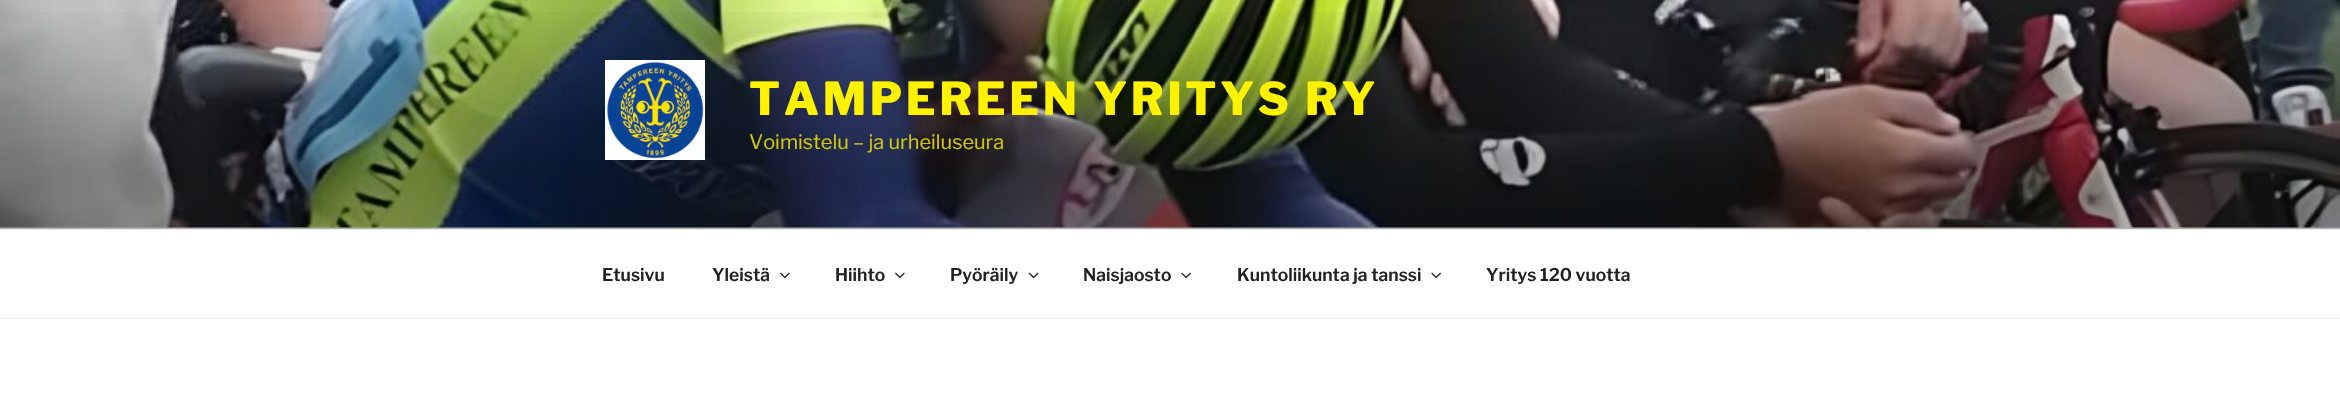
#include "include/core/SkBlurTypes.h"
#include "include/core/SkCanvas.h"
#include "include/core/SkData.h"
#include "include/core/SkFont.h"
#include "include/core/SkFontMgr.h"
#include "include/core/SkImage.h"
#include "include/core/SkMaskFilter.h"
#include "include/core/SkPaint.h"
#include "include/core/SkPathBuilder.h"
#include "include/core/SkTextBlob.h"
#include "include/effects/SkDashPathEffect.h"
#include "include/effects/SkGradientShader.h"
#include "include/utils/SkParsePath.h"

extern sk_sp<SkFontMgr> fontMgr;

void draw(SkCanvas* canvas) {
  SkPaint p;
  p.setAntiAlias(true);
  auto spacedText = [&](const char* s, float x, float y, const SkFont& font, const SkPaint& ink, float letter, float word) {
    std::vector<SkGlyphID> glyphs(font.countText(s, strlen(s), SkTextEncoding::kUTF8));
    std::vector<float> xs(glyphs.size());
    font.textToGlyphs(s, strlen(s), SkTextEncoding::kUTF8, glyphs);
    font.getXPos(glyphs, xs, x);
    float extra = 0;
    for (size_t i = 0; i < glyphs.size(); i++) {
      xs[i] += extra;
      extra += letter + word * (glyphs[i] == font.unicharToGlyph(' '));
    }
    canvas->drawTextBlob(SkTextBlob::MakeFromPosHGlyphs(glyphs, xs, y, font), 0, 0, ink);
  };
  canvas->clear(SK_ColorWHITE);
  p.setColor(SkColorSetRGB(250, 250, 250));
  canvas->drawRect(SkRect::MakeLTRB(0, 227, 2340, 229), p);
  canvas->drawImageRect(SkImages::DeferredFromEncodedData(SkData::MakeFromFileName("images/1.png")), SkRect::MakeLTRB(0, 0, 2340, 228), SkSamplingOptions());
  {
    const SkColor colors[] = {SkColorSetARGB(0, 0, 0, 0), SkColorSetARGB(77, 0, 0, 0), SkColorSetARGB(77, 0, 0, 0)};
    const float stops[] = {0, 0.75f, 1};
    const SkPoint ends[] = {{1170, 0}, {1170, 229}};
    p.setShader(SkGradientShader::MakeLinear(ends, colors, stops, 3, SkTileMode::kClamp));
    p.setAlpha(255);
  }
  canvas->drawRect(SkRect::MakeLTRB(0, 12, 2340, 229), p);
  canvas->drawImageRect(SkImages::DeferredFromEncodedData(SkData::MakeFromFileName("images/2.png")), SkRect::MakeLTRB(605, 60, 705, 160), SkSamplingOptions());
  p.setShader(nullptr);
  p.setColor(SkColorSetRGB(238, 238, 238));
  canvas->drawRect(SkRect::MakeLTRB(0, 229, 2340, 230), p);
  canvas->drawRect(SkRect::MakeLTRB(0, 318, 2340, 319), p);
  canvas->drawImageRect(SkImages::DeferredFromEncodedData(SkData::MakeFromFileName("images/3.png")), SkRect::MakeLTRB(780, 272, 790, 279), SkSamplingOptions());
  canvas->drawImageRect(SkImages::DeferredFromEncodedData(SkData::MakeFromFileName("images/3.png")), SkRect::MakeLTRB(895, 272, 905, 279), SkSamplingOptions());
  canvas->drawImageRect(SkImages::DeferredFromEncodedData(SkData::MakeFromFileName("images/4.png")), SkRect::MakeLTRB(1028, 272, 1039, 279), SkSamplingOptions());
  canvas->drawImageRect(SkImages::DeferredFromEncodedData(SkData::MakeFromFileName("images/5.png")), SkRect::MakeLTRB(1181, 272, 1191, 279), SkSamplingOptions());
  canvas->drawImageRect(SkImages::DeferredFromEncodedData(SkData::MakeFromFileName("images/5.png")), SkRect::MakeLTRB(1431, 272, 1441, 279), SkSamplingOptions());
  SkFont font1(fontMgr->matchFamilyStyle("Libre Franklin", SkFontStyle(100, SkFontStyle::kNormal_Width, SkFontStyle::kUpright_Slant)), 45);
  font1.setSubpixel(true);
  p.setColor(SkColorSetRGB(255, 242, 0));
  spacedText("TAMPEREEN YRITYS RY", 749, 115, font1, p, 3.6f, 0);
  SkFont font2(fontMgr->matchFamilyStyle("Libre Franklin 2", SkFontStyle(100, SkFontStyle::kNormal_Width, SkFontStyle::kUpright_Slant)), 20);
  font2.setSubpixel(true);
  p.setColor(SkColorSetRGB(210, 200, 11));
  canvas->drawString("Voimistelu – ja urheiluseura", 749, 149, font2, p);
  SkFont font3(fontMgr->matchFamilyStyle("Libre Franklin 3", SkFontStyle(100, SkFontStyle::kNormal_Width, SkFontStyle::kUpright_Slant)), 17.5f);
  font3.setSubpixel(true);
  p.setColor(SkColorSetRGB(34, 34, 34));
  canvas->drawString("Etusivu", 602, 281, font3, p);
  canvas->drawString("Yleistä", 712, 281, font3, p);
  canvas->drawString("Hiihto", 835, 281, font3, p);
  canvas->drawString("Pyöräily", 950, 281, font3, p);
  canvas->drawString("Naisjaosto", 1083, 281, font3, p);
  canvas->drawString("Kuntoliikunta ja tanssi", 1237, 281, font3, p);
  canvas->drawString("Yritys 120 vuotta", 1486, 281, font3, p);
}
